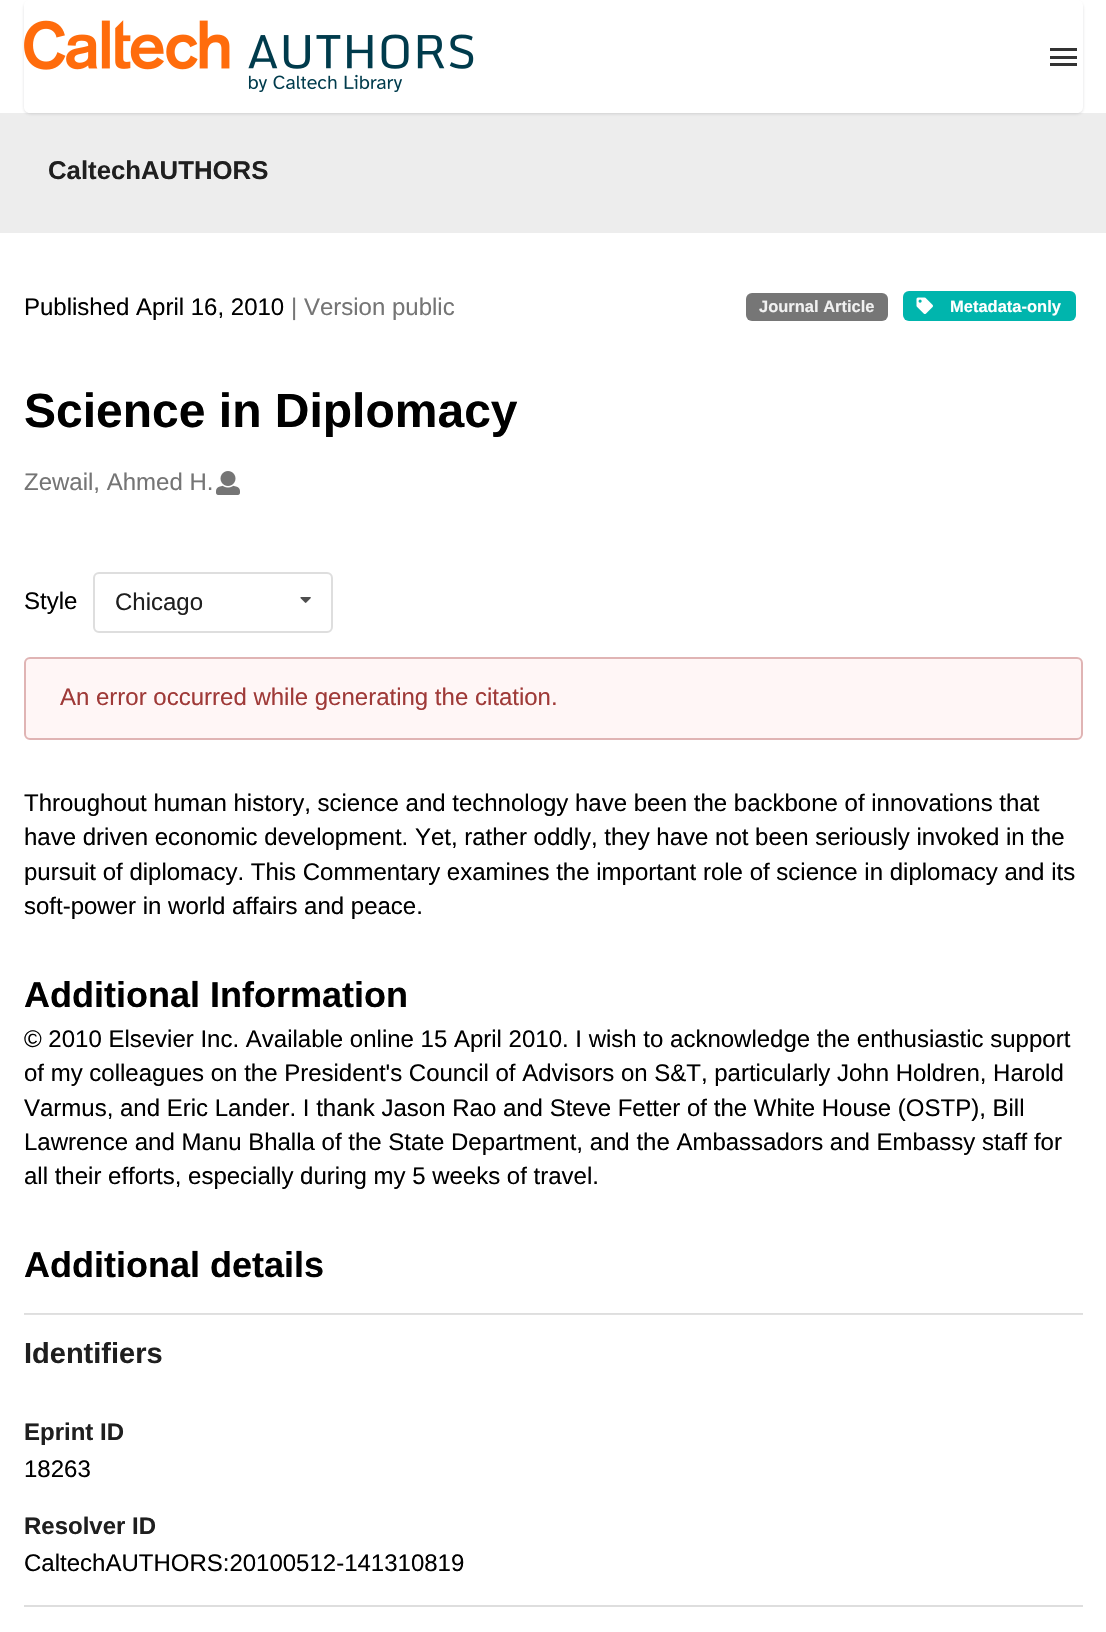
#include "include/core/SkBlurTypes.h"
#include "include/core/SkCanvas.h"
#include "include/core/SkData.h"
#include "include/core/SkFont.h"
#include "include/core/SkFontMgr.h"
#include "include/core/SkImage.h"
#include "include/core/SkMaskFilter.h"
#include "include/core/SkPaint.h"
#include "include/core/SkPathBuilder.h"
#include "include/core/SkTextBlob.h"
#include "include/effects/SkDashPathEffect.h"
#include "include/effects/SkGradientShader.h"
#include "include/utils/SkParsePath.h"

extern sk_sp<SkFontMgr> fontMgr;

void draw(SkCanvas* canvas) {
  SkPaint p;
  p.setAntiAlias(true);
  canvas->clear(SK_ColorWHITE);
  p.setColor(SkColorSetRGB(237, 237, 237));
  canvas->drawRect(SkRect::MakeLTRB(0, 113, 1106, 233), p);
  canvas->save();
  canvas->clipPath(SkPathBuilder(SkPathFillType::kEvenOdd).moveTo(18, 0).lineTo(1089, 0).lineTo(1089, 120).lineTo(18, 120).close().moveTo(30, 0).lineTo(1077, 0).cubicTo(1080.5f, 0, 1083, 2.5f, 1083, 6).lineTo(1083, 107).cubicTo(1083, 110.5f, 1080.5f, 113, 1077, 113).lineTo(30, 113).cubicTo(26.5f, 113, 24, 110.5f, 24, 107).lineTo(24, 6).cubicTo(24, 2.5f, 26.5f, 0, 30, 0).close().detach(), true);
  p.setColor(SkColorSetARGB(38, 34, 36, 38));
  p.setMaskFilter(SkMaskFilter::MakeBlur(kNormal_SkBlurStyle, 1.5f));
  canvas->drawRoundRect(SkRect::MakeLTRB(24, 2, 1083, 114), 6, 6, p);
  p.setMaskFilter(nullptr);
  canvas->restore();
  canvas->drawImageRect(SkImages::DeferredFromEncodedData(SkData::MakeFromFileName("images/1.png")), SkRect::MakeLTRB(24, 20, 474, 92), SkSamplingOptions());
  p.setColor(SkColorSetRGB(51, 51, 51));
  canvas->drawRect(SkRect::MakeLTRB(1050, 56, 1077, 59), p);
  canvas->drawRect(SkRect::MakeLTRB(1050, 48, 1077, 51), p);
  canvas->drawRect(SkRect::MakeLTRB(1050, 63, 1077, 66), p);
  p.setColor(SkColorSetRGB(118, 118, 118));
  canvas->drawRoundRect(SkRect::MakeLTRB(746, 293, 888, 321), 6, 6, p);
  p.setColor(SkColorSetRGB(0, 181, 173));
  canvas->drawRoundRect(SkRect::MakeLTRB(903, 291, 1076, 321), 6, 6, p);
  canvas->drawImageRect(SkImages::DeferredFromEncodedData(SkData::MakeFromFileName("images/2.png")), SkRect::MakeLTRB(916, 297, 933, 314), SkSamplingOptions());
  canvas->drawImageRect(SkImages::DeferredFromEncodedData(SkData::MakeFromFileName("images/3.png")), SkRect::MakeLTRB(216, 471, 240, 495), SkSamplingOptions());
  p.setStyle(SkPaint::kStroke_Style);
  p.setStrokeWidth(2);
  p.setColor(SkColorSetRGB(222, 222, 222));
  canvas->drawRoundRect(SkRect::MakeLTRB(94, 573, 332, 632), 5, 5, p);
  canvas->drawImageRect(SkImages::DeferredFromEncodedData(SkData::MakeFromFileName("images/4.png")), SkRect::MakeLTRB(300, 597, 311, 603), SkSamplingOptions());
  p.setStyle(SkPaint::kFill_Style);
  p.setColor(SkColorSetRGB(255, 246, 246));
  canvas->drawRoundRect(SkRect::MakeLTRB(25, 658, 1082, 739), 5, 5, p);
  p.setStyle(SkPaint::kStroke_Style);
  p.setColor(SkColorSetRGB(224, 180, 180));
  canvas->drawRoundRect(SkRect::MakeLTRB(25, 658, 1082, 739), 5, 5, p);
  p.setStyle(SkPaint::kFill_Style);
  p.setColor(SkColorSetRGB(222, 222, 222));
  canvas->drawRect(SkRect::MakeLTRB(24, 1313, 1083, 1314), p);
  p.setColor(SkColorSetRGB(225, 225, 225));
  canvas->drawRect(SkRect::MakeLTRB(24, 1314, 1083, 1315), p);
  p.setColor(SkColorSetRGB(222, 222, 222));
  canvas->drawRect(SkRect::MakeLTRB(24, 1605, 1083, 1607), p);
  SkFont font1(fontMgr->matchFamilyStyle("Liberation Sans", SkFontStyle::Bold()), 25.75f);
  font1.setSubpixel(true);
  p.setColor(SkColorSetRGB(31, 31, 31));
  canvas->drawString("CaltechAUTHORS", 48, 179, font1, p);
  SkFont font2(fontMgr->matchFamilyStyle("Liberation Sans", SkFontStyle::Normal()), 24);
  font2.setSubpixel(true);
  p.setColor(SK_ColorBLACK);
  canvas->drawString("Published April 16, 2010", 24, 315, font2, p);
  p.setColor(SkColorSetRGB(117, 117, 117));
  canvas->drawString("| Version public", 291, 315, font2, p);
  SkFont font3(fontMgr->matchFamilyStyle("Liberation Sans", SkFontStyle::Bold()), 16.5f);
  font3.setSubpixel(true);
  p.setColor(SkColorSetRGB(241, 241, 241));
  canvas->drawString("Journal Article", 759, 312, font3, p);
  p.setColor(SK_ColorWHITE);
  canvas->drawString("Metadata-only", 950, 312, font3, p);
  SkFont font4(fontMgr->matchFamilyStyle("Liberation Sans", SkFontStyle::Bold()), 48);
  font4.setSubpixel(true);
  p.setColor(SK_ColorBLACK);
  canvas->drawString("Science in Diplomacy", 24, 427, font4, p);
  p.setColor(SkColorSetRGB(117, 117, 117));
  canvas->drawString("Zewail, Ahmed H.", 24, 490, font2, p);
  p.setColor(SK_ColorBLACK);
  canvas->drawString("Style", 24, 609, font2, p);
  p.setColor(SkColorSetRGB(31, 31, 31));
  canvas->drawString("Chicago", 115, 610, font2, p);
  p.setColor(SkColorSetRGB(159, 58, 56));
  canvas->drawString("An error occurred while generating the citation.", 60, 705, font2, p);
  p.setColor(SK_ColorBLACK);
  canvas->drawString("Throughout human history, science and technology have been the backbone of innovations that", 24, 811, font2, p);
  canvas->drawString("have driven economic development. Yet, rather oddly, they have not been seriously invoked in the", 24, 845, font2, p);
  canvas->drawString("pursuit of diplomacy. This Commentary examines the important role of science in diplomacy and its", 24, 880, font2, p);
  canvas->drawString("soft-power in world affairs and peace.", 24, 914, font2, p);
  SkFont font5(fontMgr->matchFamilyStyle("Liberation Sans", SkFontStyle::Bold()), 36);
  font5.setSubpixel(true);
  canvas->drawString("Additional Information", 24, 1007, font5, p);
  canvas->drawString("© 2010 Elsevier Inc. Available online 15 April 2010. I wish to acknowledge the enthusiastic support", 24, 1047, font2, p);
  canvas->drawString("of my colleagues on the President's Council of Advisors on S&T, particularly John Holdren, Harold", 24, 1081, font2, p);
  canvas->drawString("Varmus, and Eric Lander. I thank Jason Rao and Steve Fetter of the White House (OSTP), Bill", 24, 1116, font2, p);
  canvas->drawString("Lawrence and Manu Bhalla of the State Department, and the Ambassadors and Embassy staff for", 24, 1150, font2, p);
  canvas->drawString("all their efforts, especially during my 5 weeks of travel.", 24, 1184, font2, p);
  canvas->drawString("Additional details", 24, 1277, font5, p);
  SkFont font6(fontMgr->matchFamilyStyle("Liberation Sans", SkFontStyle::Bold()), 29);
  font6.setSubpixel(true);
  p.setColor(SkColorSetRGB(31, 31, 31));
  canvas->drawString("Identifiers", 24, 1363, font6, p);
  SkFont font7(fontMgr->matchFamilyStyle("Liberation Sans", SkFontStyle::Bold()), 24);
  font7.setSubpixel(true);
  canvas->drawString("Eprint ID", 24, 1440, font7, p);
  p.setColor(SK_ColorBLACK);
  canvas->drawString("18263", 24, 1477, font2, p);
  p.setColor(SkColorSetRGB(31, 31, 31));
  canvas->drawString("Resolver ID", 24, 1534, font7, p);
  p.setColor(SK_ColorBLACK);
  canvas->drawString("CaltechAUTHORS:20100512-141310819", 24, 1571, font2, p);
}
